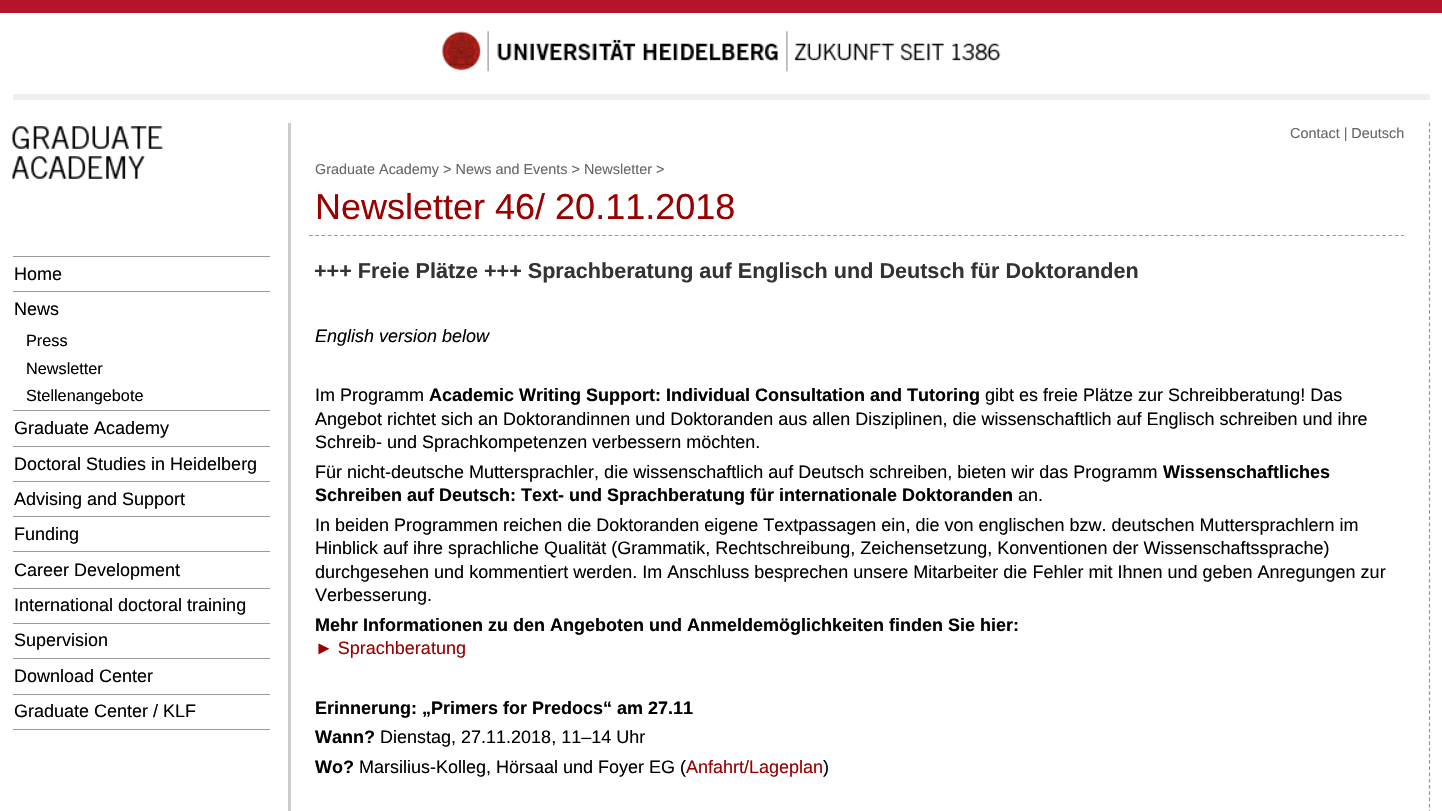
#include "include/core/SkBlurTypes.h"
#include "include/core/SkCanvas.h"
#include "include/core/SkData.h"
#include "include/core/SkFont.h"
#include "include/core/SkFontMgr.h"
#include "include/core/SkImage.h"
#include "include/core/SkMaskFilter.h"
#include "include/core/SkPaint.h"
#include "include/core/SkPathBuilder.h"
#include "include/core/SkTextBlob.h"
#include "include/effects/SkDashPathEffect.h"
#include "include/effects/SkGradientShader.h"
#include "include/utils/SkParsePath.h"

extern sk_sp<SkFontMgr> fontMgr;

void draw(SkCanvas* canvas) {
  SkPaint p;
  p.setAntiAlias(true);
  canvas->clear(SK_ColorWHITE);
  p.setColor(SkColorSetRGB(181, 21, 43));
  canvas->drawRect(SkRect::MakeLTRB(0, 0, 1442, 13), p);
  canvas->drawImageRect(SkImages::DeferredFromEncodedData(SkData::MakeFromFileName("images/1.png")), SkRect::MakeLTRB(441, 31, 1001, 72), SkSamplingOptions());
  p.setColor(SkColorSetRGB(239, 239, 239));
  canvas->drawRect(SkRect::MakeLTRB(13, 94, 1430, 100), p);
  canvas->drawImageRect(SkImages::DeferredFromEncodedData(SkData::MakeFromFileName("images/2.png")), SkRect::MakeLTRB(12, 126, 163, 179), SkSamplingOptions());
  p.setColor(SkColorSetRGB(153, 153, 153));
  canvas->drawRect(SkRect::MakeLTRB(13, 256, 270, 257), p);
  canvas->drawRect(SkRect::MakeLTRB(13, 291, 270, 292), p);
  canvas->drawRect(SkRect::MakeLTRB(13, 410, 270, 411), p);
  canvas->drawRect(SkRect::MakeLTRB(13, 446, 270, 447), p);
  canvas->drawRect(SkRect::MakeLTRB(13, 481, 270, 482), p);
  canvas->drawRect(SkRect::MakeLTRB(13, 516, 270, 517), p);
  canvas->drawRect(SkRect::MakeLTRB(13, 551, 270, 552), p);
  canvas->drawRect(SkRect::MakeLTRB(13, 588, 270, 589), p);
  canvas->drawRect(SkRect::MakeLTRB(13, 623, 270, 624), p);
  canvas->drawRect(SkRect::MakeLTRB(13, 658, 270, 659), p);
  canvas->drawRect(SkRect::MakeLTRB(13, 694, 270, 695), p);
  canvas->drawRect(SkRect::MakeLTRB(13, 729, 270, 730), p);
  p.setStyle(SkPaint::kStroke_Style);
  p.setStrokeWidth(1.2f);
  p.setPathEffect(SkDashPathEffect::Make({{3.75f, 2.5f}}, 0));
  canvas->drawPath(SkPathBuilder().moveTo(1429.5f, 122.5f).lineTo(1429.5f, 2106).detach(), p);
  p.setPathEffect(nullptr);
  p.setStyle(SkPaint::kFill_Style);
  p.setColor(SkColorSetRGB(204, 204, 204));
  canvas->drawRect(SkRect::MakeLTRB(288, 123, 291, 811), p);
  p.setStyle(SkPaint::kStroke_Style);
  p.setColor(SkColorSetRGB(153, 153, 153));
  p.setPathEffect(SkDashPathEffect::Make({{3.75f, 2.49f}}, 0));
  canvas->drawPath(SkPathBuilder().moveTo(309, 235.5f).lineTo(1404, 235.5f).detach(), p);
  p.setPathEffect(nullptr);
  SkFont font1(fontMgr->matchFamilyStyle("Liberation Sans", SkFontStyle::Normal()), 18);
  font1.setSubpixel(true);
  p.setStyle(SkPaint::kFill_Style);
  p.setColor(SK_ColorBLACK);
  canvas->drawString("Home", 14, 280, font1, p);
  canvas->drawString("News", 14, 315, font1, p);
  SkFont font2(fontMgr->matchFamilyStyle("Liberation Sans", SkFontStyle::Normal()), 16.25f);
  font2.setSubpixel(true);
  canvas->drawString("Press", 26, 346, font2, p);
  canvas->drawString("Newsletter", 26, 374, font2, p);
  canvas->drawString("Stellenangebote", 26, 401, font2, p);
  canvas->drawString("Graduate Academy", 14, 434, font1, p);
  canvas->drawString("Doctoral Studies in Heidelberg", 14, 470, font1, p);
  canvas->drawString("Advising and Support", 14, 505, font1, p);
  canvas->drawString("Funding", 14, 540, font1, p);
  canvas->drawString("Career Development", 14, 576, font1, p);
  canvas->drawString("International doctoral training", 14, 611, font1, p);
  canvas->drawString("Supervision", 14, 646, font1, p);
  canvas->drawString("Download Center", 14, 682, font1, p);
  canvas->drawString("Graduate Center / KLF", 14, 717, font1, p);
  SkFont font3(fontMgr->matchFamilyStyle("Liberation Sans", SkFontStyle::Normal()), 14.4f);
  font3.setSubpixel(true);
  p.setColor(SkColorSetRGB(102, 102, 102));
  canvas->drawString("Contact | Deutsch", 1290, 138, font3, p);
  canvas->drawString("Graduate Academy > News and Events > Newsletter >", 315, 174, font3, p);
  SkFont font4(fontMgr->matchFamilyStyle("Liberation Sans", SkFontStyle::Normal()), 36);
  font4.setSubpixel(true);
  p.setColor(SkColorSetRGB(153, 0, 0));
  canvas->drawString("Newsletter 46/ 20.11.2018", 315, 219, font4, p);
  SkFont font5(fontMgr->matchFamilyStyle("Liberation Sans", SkFontStyle::Bold()), 21.6f);
  font5.setSubpixel(true);
  p.setColor(SkColorSetRGB(51, 51, 51));
  canvas->drawString("+++ Freie Plätze +++ Sprachberatung auf Englisch und Deutsch für Doktoranden", 314, 278, font5, p);
  SkFont font6(fontMgr->matchFamilyStyle("Liberation Sans", SkFontStyle::Italic()), 18);
  font6.setSubpixel(true);
  p.setColor(SK_ColorBLACK);
  canvas->drawString("English version below", 315, 342, font6, p);
  canvas->drawString("Im Programm", 315, 401, font1, p);
  SkFont font7(fontMgr->matchFamilyStyle("Liberation Sans", SkFontStyle::Bold()), 18);
  font7.setSubpixel(true);
  canvas->drawString("Academic Writing Support: Individual Consultation and Tutoring", 429, 401, font7, p);
  canvas->drawString("gibt es freie Plätze zur Schreibberatung! Das", 985, 401, font1, p);
  canvas->drawString("Angebot richtet sich an Doktorandinnen und Doktoranden aus allen Disziplinen, die wissenschaftlich auf Englisch schreiben und ihre", 315, 425, font1, p);
  canvas->drawString("Schreib- und Sprachkompetenzen verbessern möchten.", 315, 448, font1, p);
  canvas->drawString("Für nicht-deutsche Muttersprachler, die wissenschaftlich auf Deutsch schreiben, bieten wir das Programm", 315, 478, font1, p);
  canvas->drawString("Wissenschaftliches", 1163, 478, font7, p);
  canvas->drawString("Schreiben auf Deutsch: Text- und Sprachberatung für internationale Doktoranden", 315, 501, font7, p);
  canvas->drawString("an.", 1018, 501, font1, p);
  canvas->drawString("In beiden Programmen reichen die Doktoranden eigene Textpassagen ein, die von englischen bzw. deutschen Muttersprachlern im", 315, 531, font1, p);
  canvas->drawString("Hinblick auf ihre sprachliche Qualität (Grammatik, Rechtschreibung, Zeichensetzung, Konventionen der Wissenschaftssprache)", 315, 554, font1, p);
  canvas->drawString("durchgesehen und kommentiert werden. Im Anschluss besprechen unsere Mitarbeiter die Fehler mit Ihnen und geben Anregungen zur", 315, 578, font1, p);
  canvas->drawString("Verbesserung.", 315, 601, font1, p);
  canvas->drawString("Mehr Informationen zu den Angeboten und Anmeldemöglichkeiten finden Sie hier:", 315, 631, font7, p);
  p.setColor(SkColorSetRGB(153, 0, 0));
  canvas->drawString("► Sprachberatung", 315, 654, font1, p);
  p.setColor(SK_ColorBLACK);
  canvas->drawString("Erinnerung: „Primers for Predocs“ am 27.11", 315, 714, font7, p);
  canvas->drawString("Wann?", 315, 743, font7, p);
  canvas->drawString("Dienstag, 27.11.2018, 11–14 Uhr", 380, 743, font1, p);
  canvas->drawString("Wo?", 315, 773, font7, p);
  canvas->drawString("Marsilius-Kolleg, Hörsaal und Foyer EG (", 359, 773, font1, p);
  p.setColor(SkColorSetRGB(153, 0, 0));
  canvas->drawString("Anfahrt/Lageplan", 686, 773, font1, p);
  p.setColor(SK_ColorBLACK);
  canvas->drawString(")", 823, 773, font1, p);
}
